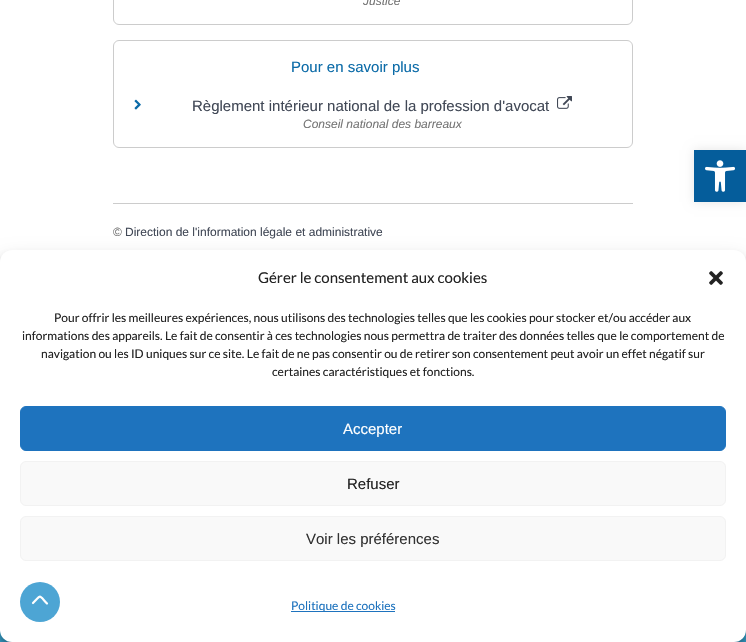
#include "include/core/SkBlurTypes.h"
#include "include/core/SkCanvas.h"
#include "include/core/SkData.h"
#include "include/core/SkFont.h"
#include "include/core/SkFontMgr.h"
#include "include/core/SkImage.h"
#include "include/core/SkMaskFilter.h"
#include "include/core/SkPaint.h"
#include "include/core/SkPathBuilder.h"
#include "include/core/SkTextBlob.h"
#include "include/effects/SkDashPathEffect.h"
#include "include/effects/SkGradientShader.h"
#include "include/utils/SkParsePath.h"

extern sk_sp<SkFontMgr> fontMgr;

void draw(SkCanvas* canvas) {
  SkPaint p;
  p.setAntiAlias(true);
  canvas->clear(SK_ColorWHITE);
  p.setStyle(SkPaint::kStroke_Style);
  p.setStrokeWidth(1);
  p.setColor(SkColorSetRGB(204, 204, 204));
  canvas->drawRoundRect(SkRect::MakeLTRB(113.5f, -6.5f, 632.5f, 24.5f), 5.5f, 5.5f, p);
  canvas->drawRoundRect(SkRect::MakeLTRB(113.5f, 40.5f, 632.5f, 147.5f), 5.5f, 5.5f, p);
  canvas->drawImageRect(SkImages::DeferredFromEncodedData(SkData::MakeFromFileName("images/1.png")), SkRect::MakeLTRB(134, 99, 141, 110), SkSamplingOptions());
  canvas->drawImageRect(SkImages::DeferredFromEncodedData(SkData::MakeFromFileName("images/2.png")), SkRect::MakeLTRB(557, 96, 572, 109), SkSamplingOptions());
  p.setStyle(SkPaint::kFill_Style);
  canvas->drawRect(SkRect::MakeLTRB(113, 203, 633, 204), p);
  p.setColor(SkColorSetRGB(54, 163, 207));
  canvas->drawRect(SkRect::MakeLTRB(0, 630, 746, 642), p);
  p.setColor(SkColorSetARGB(26, 0, 0, 0));
  p.setMaskFilter(SkMaskFilter::MakeBlur(kNormal_SkBlurStyle, 5));
  canvas->drawRect(SkRect::MakeLTRB(694, 150, 746, 202), p);
  p.setMaskFilter(nullptr);
  p.setColor(SkColorSetRGB(5, 93, 155));
  canvas->drawRect(SkRect::MakeLTRB(694, 150, 746, 202), p);
  canvas->drawImageRect(SkImages::DeferredFromEncodedData(SkData::MakeFromFileName("images/3.png")), SkRect::MakeLTRB(705, 160, 735, 192), SkSamplingOptions());
  p.setColor(SkColorSetARGB(59, 0, 0, 0));
  p.setMaskFilter(SkMaskFilter::MakeBlur(kNormal_SkBlurStyle, 3));
  canvas->drawRoundRect(SkRect::MakeLTRB(0, 256, 746, 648), 12, 12, p);
  p.setMaskFilter(nullptr);
  p.setColor(SkColorSetARGB(48, 0, 0, 0));
  p.setMaskFilter(SkMaskFilter::MakeBlur(kNormal_SkBlurStyle, 10));
  canvas->drawRoundRect(SkRect::MakeLTRB(0, 260, 746, 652), 12, 12, p);
  p.setMaskFilter(nullptr);
  p.setColor(SK_ColorWHITE);
  canvas->drawRoundRect(SkRect::MakeLTRB(0, 250, 746, 642), 12, 12, p);
  canvas->drawImageRect(SkImages::DeferredFromEncodedData(SkData::MakeFromFileName("images/4.png")), SkRect::MakeLTRB(709, 271, 723, 285), SkSamplingOptions());
  p.setColor(SkColorSetRGB(30, 115, 190));
  canvas->drawRoundRect(SkRect::MakeLTRB(20.5f, 406.5f, 725.5f, 450.5f), 5.5f, 5.5f, p);
  p.setStyle(SkPaint::kStroke_Style);
  canvas->drawRoundRect(SkRect::MakeLTRB(20.5f, 406.5f, 725.5f, 450.5f), 5.5f, 5.5f, p);
  p.setStyle(SkPaint::kFill_Style);
  p.setColor(SkColorSetRGB(249, 249, 249));
  canvas->drawRoundRect(SkRect::MakeLTRB(20.5f, 461.5f, 725.5f, 505.5f), 5.5f, 5.5f, p);
  p.setStyle(SkPaint::kStroke_Style);
  p.setColor(SkColorSetRGB(242, 242, 242));
  canvas->drawRoundRect(SkRect::MakeLTRB(20.5f, 461.5f, 725.5f, 505.5f), 5.5f, 5.5f, p);
  p.setStyle(SkPaint::kFill_Style);
  p.setColor(SkColorSetRGB(249, 249, 249));
  canvas->drawRoundRect(SkRect::MakeLTRB(20.5f, 516.5f, 725.5f, 560.5f), 5.5f, 5.5f, p);
  p.setStyle(SkPaint::kStroke_Style);
  p.setColor(SkColorSetRGB(242, 242, 242));
  canvas->drawRoundRect(SkRect::MakeLTRB(20.5f, 516.5f, 725.5f, 560.5f), 5.5f, 5.5f, p);
  p.setStyle(SkPaint::kFill_Style);
  p.setColor(SkColorSetRGB(30, 115, 190));
  canvas->drawRect(SkRect::MakeLTRB(291, 611, 395, 612), p);
  p.setColor(SkColorSetRGB(77, 165, 212));
  canvas->drawCircle(40, 602, 20, p);
  p.setStyle(SkPaint::kStroke_Style);
  p.setStrokeWidth(2.2f);
  p.setStrokeCap(SkPaint::kRound_Cap);
  p.setStrokeJoin(SkPaint::kBevel_Join);
  p.setColor(SK_ColorWHITE);
  canvas->drawPath(SkPathBuilder().moveTo(47, 603.5f).cubicTo(38.5f, 594.5f, 41.5f, 594.5f, 33, 603).detach(), p);
  SkFont font1(fontMgr->matchFamilyStyle("Liberation Sans", SkFontStyle::Italic()), 12);
  font1.setSubpixel(true);
  p.setStyle(SkPaint::kFill_Style);
  p.setColor(SkColorSetRGB(117, 117, 117));
  canvas->drawString("Justice", 363, 5, font1, p);
  SkFont font2(fontMgr->matchFamilyStyle("Liberation Sans", SkFontStyle::Normal()), 15);
  font2.setSubpixel(true);
  p.setColor(SkColorSetRGB(11, 107, 168));
  canvas->drawString("Pour en savoir plus", 291, 72, font2, p);
  p.setColor(SkColorSetRGB(65, 72, 86));
  canvas->drawString("Règlement intérieur national de la profession d'avocat", 192, 111, font2, p);
  p.setColor(SkColorSetRGB(117, 117, 117));
  canvas->drawString("Conseil national des barreaux", 303, 128, font1, p);
  SkFont font3(fontMgr->matchFamilyStyle("Liberation Sans", SkFontStyle::Normal()), 12);
  font3.setSubpixel(true);
  canvas->drawString("©", 113, 236, font3, p);
  p.setColor(SkColorSetRGB(65, 72, 86));
  canvas->drawString("Direction de l'information légale et administrative", 125, 236, font3, p);
  SkFont font4(fontMgr->matchFamilyStyle("Lato", SkFontStyle::Normal()), 15);
  font4.setSubpixel(true);
  p.setColor(SkColorSetRGB(34, 34, 34));
  canvas->drawString("Gérer le consentement aux cookies", 258, 283, font4, p);
  SkFont font5(fontMgr->matchFamilyStyle("Lato", SkFontStyle::Normal()), 12);
  font5.setSubpixel(true);
  canvas->drawString("Pour offrir les meilleures expériences, nous utilisons des technologies telles que les cookies pour stocker et/ou accéder aux", 54, 322, font5, p);
  canvas->drawString("informations des appareils. Le fait de consentir à ces technologies nous permettra de traiter des données telles que le comportement de", 22, 340, font5, p);
  canvas->drawString("navigation ou les ID uniques sur ce site. Le fait de ne pas consentir ou de retirer son consentement peut avoir un effet négatif sur", 41, 358, font5, p);
  canvas->drawString("certaines caractéristiques et fonctions.", 272, 376, font5, p);
  p.setColor(SK_ColorWHITE);
  canvas->drawString("Accepter", 343, 434, font2, p);
  p.setColor(SkColorSetRGB(34, 34, 34));
  canvas->drawString("Refuser", 347, 489, font2, p);
  p.setColor(SkColorSetRGB(51, 51, 51));
  canvas->drawString("Voir les préférences", 306, 544, font2, p);
  p.setColor(SkColorSetRGB(30, 115, 190));
  canvas->drawString("Politique de cookies", 291, 610, font5, p);
}
